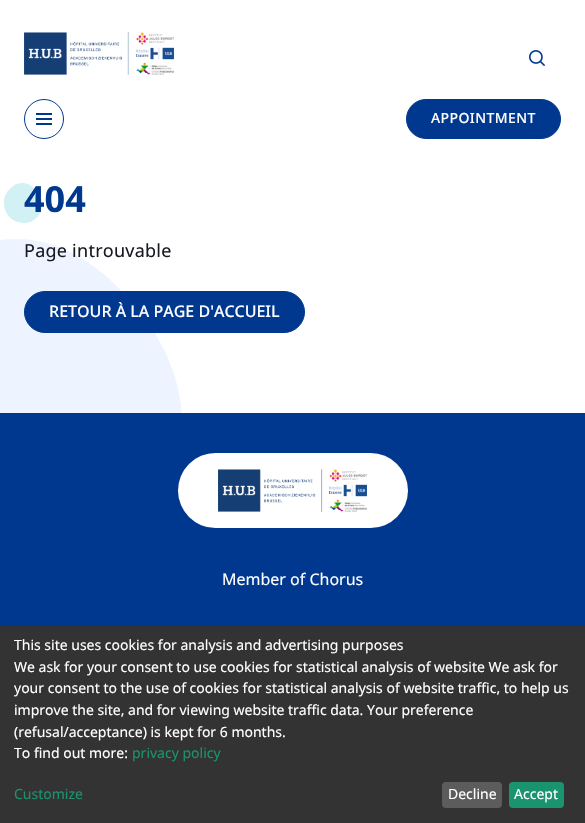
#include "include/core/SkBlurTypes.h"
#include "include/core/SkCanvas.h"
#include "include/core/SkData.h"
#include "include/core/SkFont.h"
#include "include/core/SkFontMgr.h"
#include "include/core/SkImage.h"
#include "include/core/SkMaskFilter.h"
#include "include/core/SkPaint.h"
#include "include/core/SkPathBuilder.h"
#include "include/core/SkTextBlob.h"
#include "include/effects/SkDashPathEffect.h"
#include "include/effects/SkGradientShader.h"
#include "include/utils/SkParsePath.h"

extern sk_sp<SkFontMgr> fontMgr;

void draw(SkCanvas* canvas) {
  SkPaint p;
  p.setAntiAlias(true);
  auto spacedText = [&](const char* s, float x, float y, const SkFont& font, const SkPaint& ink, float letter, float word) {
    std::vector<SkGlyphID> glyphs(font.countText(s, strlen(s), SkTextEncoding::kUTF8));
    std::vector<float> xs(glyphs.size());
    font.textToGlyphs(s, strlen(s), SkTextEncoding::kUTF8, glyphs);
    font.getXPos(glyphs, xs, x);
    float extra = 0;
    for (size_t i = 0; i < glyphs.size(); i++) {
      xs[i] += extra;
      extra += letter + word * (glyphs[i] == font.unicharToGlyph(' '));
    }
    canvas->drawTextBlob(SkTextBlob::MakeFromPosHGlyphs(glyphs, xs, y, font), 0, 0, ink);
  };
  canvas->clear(SK_ColorWHITE);
  canvas->drawImageRect(SkImages::DeferredFromEncodedData(SkData::MakeFromFileName("images/1.png")), SkRect::MakeLTRB(24, 32, 174, 75), SkSamplingOptions());
  canvas->drawImageRect(SkImages::DeferredFromEncodedData(SkData::MakeFromFileName("images/2.png")), SkRect::MakeLTRB(529, 50, 545, 66), SkSamplingOptions());
  p.setStyle(SkPaint::kStroke_Style);
  p.setStrokeWidth(1);
  p.setColor(SkColorSetRGB(0, 56, 143));
  canvas->drawCircle(44, 119, 19.5f, p);
  p.setStyle(SkPaint::kFill_Style);
  canvas->drawRect(SkRect::MakeLTRB(36, 113, 52, 115), p);
  canvas->drawRect(SkRect::MakeLTRB(36, 118, 52, 120), p);
  canvas->drawRect(SkRect::MakeLTRB(36, 123, 52, 125), p);
  canvas->drawRoundRect(SkRect::MakeLTRB(406.5f, 99.5f, 560.5f, 138.5f), 19.5f, 19.5f, p);
  p.setStyle(SkPaint::kStroke_Style);
  canvas->drawRoundRect(SkRect::MakeLTRB(406.5f, 99.5f, 560.5f, 138.5f), 19.5f, 19.5f, p);
  canvas->save();
  canvas->clipRect(SkRect::MakeLTRB(4, 183, 42, 223));
  p.setStyle(SkPaint::kFill_Style);
  p.setColor(SkColorSetRGB(210, 241, 244));
  canvas->drawPath(SkPathBuilder(SkPathFillType::kEvenOdd).moveTo(23, 183).cubicTo(27, 183, 31, 185, 35, 189).cubicTo(38, 192, 41, 196, 42, 201).cubicTo(44, 213, 34, 224, 23, 223).cubicTo(4, 222, -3, 198, 12, 187).cubicTo(15, 184, 19, 183, 23, 183).close().detach(), p);
  canvas->restore();
  p.setColor(SkColorSetRGB(237, 244, 255));
  canvas->drawPath(SkPathBuilder(SkPathFillType::kEvenOdd).moveTo(19, 239).cubicTo(71, 240, 114, 277, 145, 319).cubicTo(175, 359, 189, 408, 179, 456).cubicTo(169, 507, 140, 554, 94, 576).cubicTo(48, 599, -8, 595, -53, 570).cubicTo(-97, 547, -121, 502, -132, 454).cubicTo(-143, 406, -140, 355, -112, 315).cubicTo(-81, 271, -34, 238, 19, 239).close().detach(), p);
  p.setColor(SkColorSetRGB(0, 56, 143));
  canvas->drawRoundRect(SkRect::MakeLTRB(24.5f, 291.5f, 304.5f, 332.5f), 20.5f, 20.5f, p);
  p.setStyle(SkPaint::kStroke_Style);
  canvas->drawRoundRect(SkRect::MakeLTRB(24.5f, 291.5f, 304.5f, 332.5f), 20.5f, 20.5f, p);
  p.setStyle(SkPaint::kFill_Style);
  canvas->drawRect(SkRect::MakeLTRB(0, 413, 585, 626), p);
  p.setColor(SK_ColorWHITE);
  canvas->drawRoundRect(SkRect::MakeLTRB(178, 453, 408, 528), 37.5f, 37.5f, p);
  canvas->drawImageRect(SkImages::DeferredFromEncodedData(SkData::MakeFromFileName("images/3.png")), SkRect::MakeLTRB(218, 469, 367, 512), SkSamplingOptions());
  p.setColor(SkColorSetRGB(51, 51, 51));
  canvas->drawRect(SkRect::MakeLTRB(0, 626, 585, 823), p);
  p.setColor(SkColorSetRGB(92, 92, 92));
  canvas->drawRoundRect(SkRect::MakeLTRB(442, 782, 502, 808), 4, 4, p);
  p.setColor(SkColorSetRGB(26, 147, 111));
  canvas->drawRoundRect(SkRect::MakeLTRB(509, 782, 564, 808), 4, 4, p);
  SkFont font1(fontMgr->matchFamilyStyle("Noto Sans", SkFontStyle(500, SkFontStyle::kNormal_Width, SkFontStyle::kUpright_Slant)), 14);
  font1.setSubpixel(true);
  p.setColor(SK_ColorWHITE);
  spacedText("APPOINTMENT", 431, 123, font1, p, 0.4f, 0);
  SkFont font2(fontMgr->matchFamilyStyle("Noto Sans", SkFontStyle::Bold()), 36);
  font2.setSubpixel(true);
  p.setColor(SkColorSetRGB(0, 56, 143));
  canvas->drawString("404", 24, 212, font2, p);
  SkFont font3(fontMgr->matchFamilyStyle("Noto Sans", SkFontStyle::Normal()), 18);
  font3.setSubpixel(true);
  p.setColor(SkColorSetRGB(23, 26, 32));
  spacedText("Page introuvable", 24, 257, font3, p, 0.25f, 0);
  SkFont font4(fontMgr->matchFamilyStyle("Noto Sans", SkFontStyle(500, SkFontStyle::kNormal_Width, SkFontStyle::kUpright_Slant)), 16);
  font4.setSubpixel(true);
  p.setColor(SK_ColorWHITE);
  canvas->drawString("RETOUR À LA PAGE D'ACCUEIL", 49, 317, font4, p);
  SkFont font5(fontMgr->matchFamilyStyle("Noto Sans", SkFontStyle::Normal()), 16);
  font5.setSubpixel(true);
  canvas->drawString("Member of Chorus", 222, 585, font5, p);
  SkFont font6(fontMgr->matchFamilyStyle("Noto Sans", SkFontStyle::Normal()), 14);
  font6.setSubpixel(true);
  canvas->drawString("This site uses cookies for analysis and advertising purposes", 14, 650, font6, p);
  canvas->drawString("We ask for your consent to use cookies for statistical analysis of website We ask for", 14, 672, font6, p);
  canvas->drawString("your consent to the use of cookies for statistical analysis of website traffic, to help us", 14, 693, font6, p);
  canvas->drawString("improve the site, and for viewing website traffic data. Your preference", 14, 715, font6, p);
  canvas->drawString("(refusal/acceptance) is kept for 6 months.", 14, 737, font6, p);
  canvas->drawString("To find out more:", 14, 758, font6, p);
  p.setColor(SkColorSetRGB(26, 147, 111));
  canvas->drawString("privacy policy", 132, 758, font6, p);
  canvas->drawString("Customize", 14, 799, font6, p);
  p.setColor(SK_ColorWHITE);
  canvas->drawString("Decline", 448, 799, font6, p);
  canvas->drawString("Accept", 514, 799, font6, p);
}
